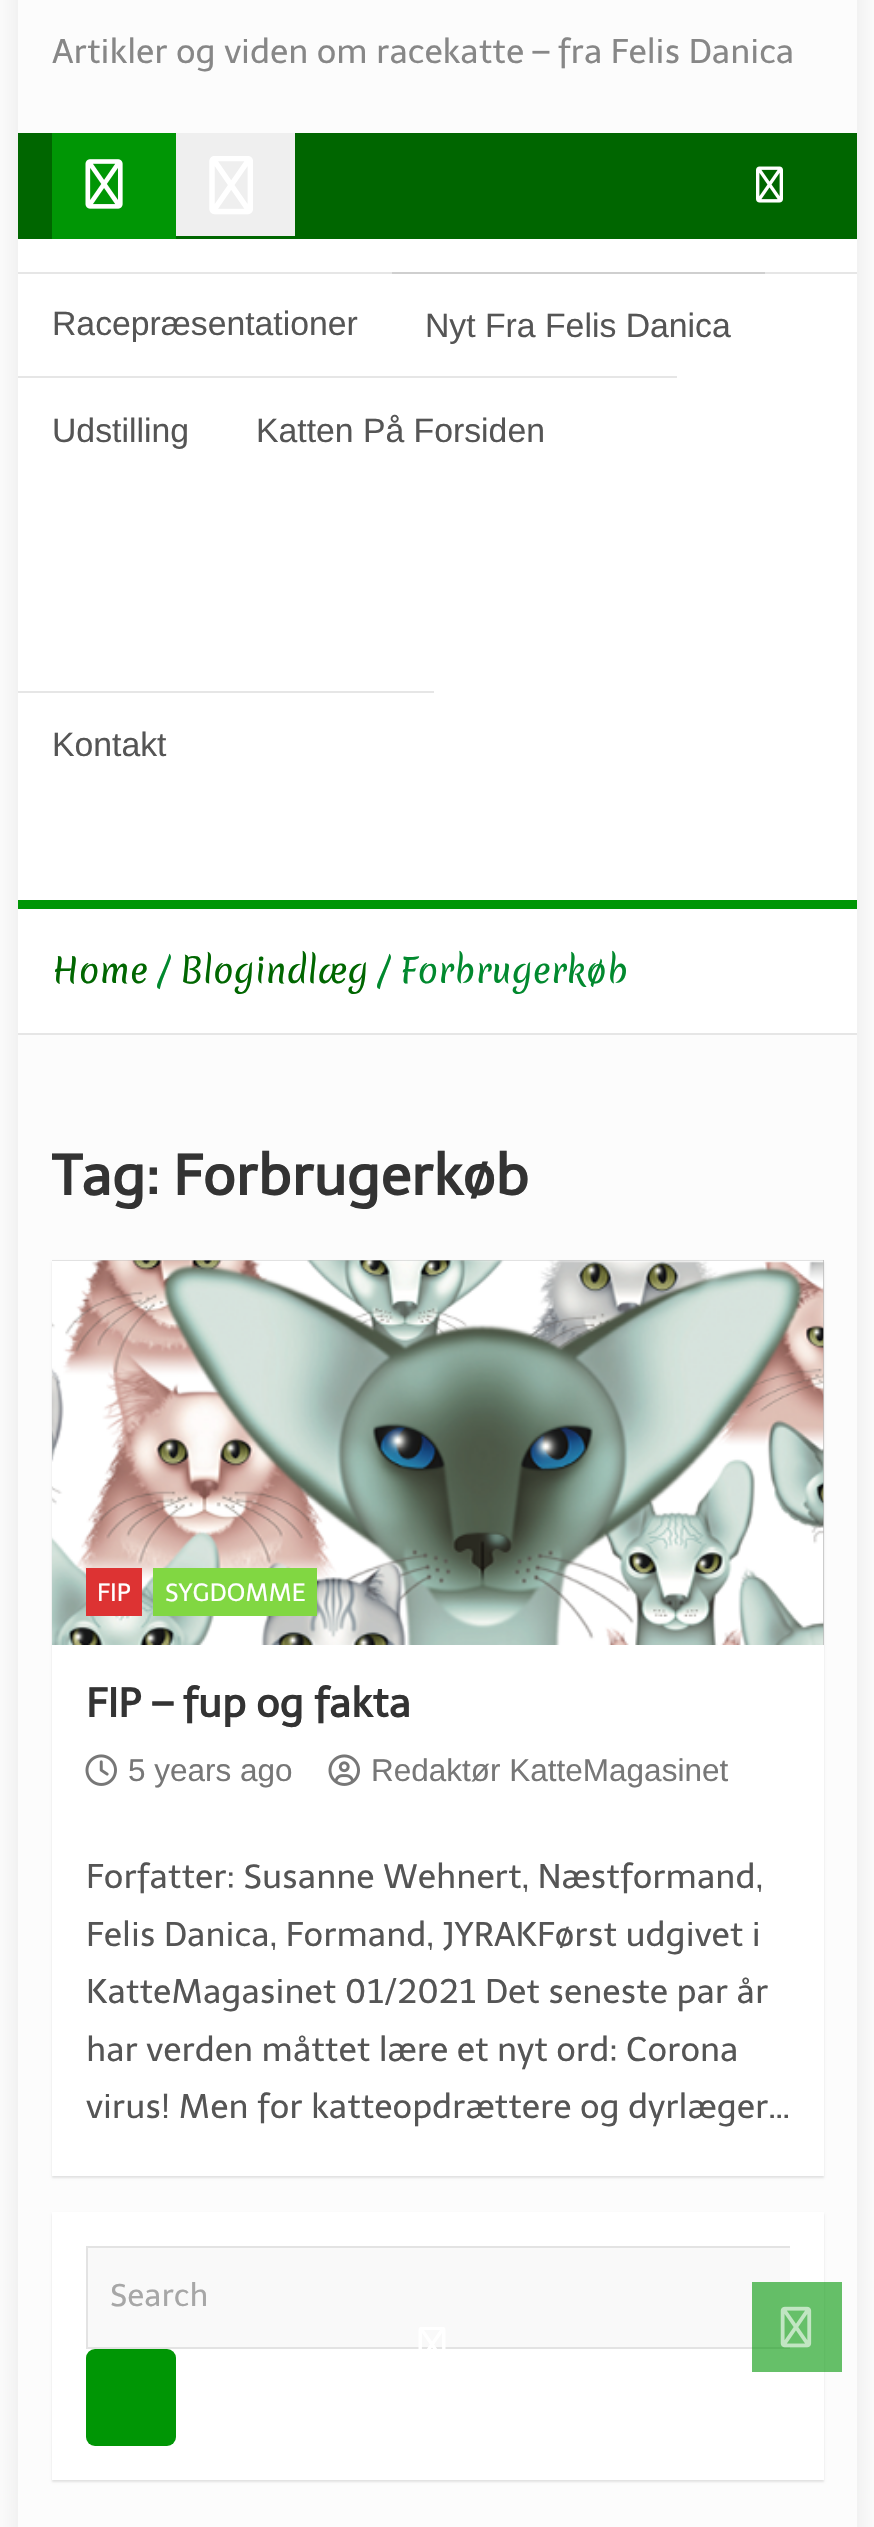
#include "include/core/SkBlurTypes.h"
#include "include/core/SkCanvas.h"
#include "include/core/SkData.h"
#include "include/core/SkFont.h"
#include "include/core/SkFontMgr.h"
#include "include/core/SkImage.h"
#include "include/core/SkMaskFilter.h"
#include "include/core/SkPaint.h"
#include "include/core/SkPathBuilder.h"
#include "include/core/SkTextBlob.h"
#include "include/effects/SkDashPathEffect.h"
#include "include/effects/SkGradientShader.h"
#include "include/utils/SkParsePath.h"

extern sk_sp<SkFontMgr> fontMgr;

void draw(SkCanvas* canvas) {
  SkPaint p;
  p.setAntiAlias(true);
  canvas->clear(SK_ColorWHITE);
  p.setColor(SkColorSetARGB(26, 0, 0, 0));
  p.setMaskFilter(SkMaskFilter::MakeBlur(kNormal_SkBlurStyle, 17));
  canvas->drawRect(SkRect::MakeLTRB(18, -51, 857, 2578), p);
  p.setMaskFilter(nullptr);
  p.setColor(SkColorSetRGB(252, 252, 252));
  canvas->drawRect(SkRect::MakeLTRB(18, 0, 857, 2527), p);
  p.setColor(SkColorSetRGB(0, 102, 0));
  canvas->drawRect(SkRect::MakeLTRB(18, 133, 857, 239), p);
  p.setColor(SkColorSetRGB(0, 150, 5));
  canvas->drawRect(SkRect::MakeLTRB(52, 133, 176, 239), p);
  canvas->drawImageRect(SkImages::DeferredFromEncodedData(SkData::MakeFromFileName("images/1.png")), SkRect::MakeLTRB(85, 159, 123, 209), SkSamplingOptions());
  p.setColor(SkColorSetRGB(239, 239, 239));
  canvas->drawRect(SkRect::MakeLTRB(176, 133, 295, 236), p);
  canvas->drawImageRect(SkImages::DeferredFromEncodedData(SkData::MakeFromFileName("images/2.png")), SkRect::MakeLTRB(209, 156, 253, 215), SkSamplingOptions());
  canvas->drawImageRect(SkImages::DeferredFromEncodedData(SkData::MakeFromFileName("images/3.png")), SkRect::MakeLTRB(756, 166, 783, 203), SkSamplingOptions());
  p.setColor(SK_ColorWHITE);
  canvas->drawRect(SkRect::MakeLTRB(18, 239, 857, 900), p);
  p.setColor(SkColorSetRGB(0, 150, 5));
  canvas->drawRect(SkRect::MakeLTRB(18, 900, 857, 909), p);
  p.setColor(SkColorSetRGB(230, 230, 230));
  canvas->drawRect(SkRect::MakeLTRB(18, 272, 857, 274), p);
  p.setColor(SkColorSetRGB(207, 207, 207));
  canvas->drawRect(SkRect::MakeLTRB(392, 272, 765, 274), p);
  p.setColor(SkColorSetRGB(230, 230, 230));
  canvas->drawRect(SkRect::MakeLTRB(18, 376, 677, 378), p);
  canvas->drawRect(SkRect::MakeLTRB(18, 691, 434, 693), p);
  p.setColor(SK_ColorWHITE);
  canvas->drawRect(SkRect::MakeLTRB(18, 909, 857, 1033), p);
  p.setColor(SkColorSetRGB(230, 230, 230));
  canvas->drawRect(SkRect::MakeLTRB(18, 1033, 857, 1035), p);
  p.setColor(SkColorSetARGB(26, 0, 0, 0));
  p.setMaskFilter(SkMaskFilter::MakeBlur(kNormal_SkBlurStyle, 1));
  canvas->drawRect(SkRect::MakeLTRB(52, 1262, 824, 2178), p);
  p.setMaskFilter(nullptr);
  p.setColor(SK_ColorWHITE);
  canvas->drawRect(SkRect::MakeLTRB(52, 1645, 824, 2176), p);
  p.setColor(SkColorSetRGB(187, 187, 187));
  canvas->drawRect(SkRect::MakeLTRB(52, 1260, 824, 1645), p);
  canvas->drawImageRect(SkImages::DeferredFromEncodedData(SkData::MakeFromFileName("images/4.png")), SkRect::MakeLTRB(51, 1260, 824, 1645), SkSamplingOptions());
  p.setColor(SkColorSetRGB(221, 51, 51));
  canvas->drawRect(SkRect::MakeLTRB(86, 1568, 142, 1616), p);
  p.setColor(SkColorSetRGB(129, 215, 66));
  canvas->drawRect(SkRect::MakeLTRB(153, 1568, 317, 1616), p);
  canvas->drawImageRect(SkImages::DeferredFromEncodedData(SkData::MakeFromFileName("images/5.png")), SkRect::MakeLTRB(85, 1754, 117, 1786), SkSamplingOptions());
  canvas->drawImageRect(SkImages::DeferredFromEncodedData(SkData::MakeFromFileName("images/6.png")), SkRect::MakeLTRB(328, 1754, 360, 1786), SkSamplingOptions());
  p.setColor(SkColorSetARGB(26, 0, 0, 0));
  p.setMaskFilter(SkMaskFilter::MakeBlur(kNormal_SkBlurStyle, 1));
  canvas->drawRect(SkRect::MakeLTRB(52, 2214, 824, 2482), p);
  p.setMaskFilter(nullptr);
  p.setColor(SK_ColorWHITE);
  canvas->drawRect(SkRect::MakeLTRB(52, 2212, 824, 2480), p);
  p.setColor(SkColorSetRGB(249, 249, 249));
  canvas->drawRect(SkRect::MakeLTRB(86, 2246, 790, 2349), p);
  p.setColor(SkColorSetRGB(227, 227, 227));
  canvas->drawPath(SkPathBuilder().moveTo(86, 2246).lineTo(790, 2246).lineTo(790, 2248).lineTo(88, 2248).close().detach(), p);
  canvas->drawPath(SkPathBuilder().moveTo(790, 2349).lineTo(86, 2349).lineTo(88, 2347).lineTo(790, 2347).close().detach(), p);
  p.setColor(SkColorSetARGB(23, 0, 0, 0));
  canvas->drawPath(SkPathBuilder().moveTo(86, 2349).lineTo(86, 2246).lineTo(88, 2248).lineTo(88, 2347).close().detach(), p);
  p.setColor(SkColorSetRGB(0, 150, 5));
  canvas->drawRoundRect(SkRect::MakeLTRB(86, 2349, 176, 2446), 9, 9, p);
  canvas->drawImageRect(SkImages::DeferredFromEncodedData(SkData::MakeFromFileName("images/7.png")), SkRect::MakeLTRB(418, 2327, 446, 2349), SkSamplingOptions());
  p.setColor(SkColorSetARGB(153, 0, 150, 5));
  canvas->drawRect(SkRect::MakeLTRB(752, 2282, 842, 2372), p);
  canvas->drawImageRect(SkImages::DeferredFromEncodedData(SkData::MakeFromFileName("images/8.png")), SkRect::MakeLTRB(780, 2306, 812, 2348), SkSamplingOptions());
  SkFont font1(fontMgr->matchFamilyStyle("Telex", SkFontStyle::Normal()), 33.75f);
  font1.setSubpixel(true);
  p.setColor(SkColorSetRGB(135, 135, 135));
  canvas->drawString("Artikler og viden om racekatte – fra Felis Danica", 52, 63, font1, p);
  SkFont font2(fontMgr->matchFamilyStyle("Liberation Sans", SkFontStyle::Normal()), 33.75f);
  font2.setSubpixel(true);
  p.setColor(SkColorSetRGB(85, 85, 85));
  canvas->drawString("Racepræsentationer", 52, 335, font2, p);
  canvas->drawString("Nyt Fra Felis Danica", 425, 337, font2, p);
  canvas->drawString("Udstilling", 52, 442, font2, p);
  canvas->drawString("Katten På Forsiden", 256, 442, font2, p);
  canvas->drawString("Kontakt", 52, 756, font2, p);
  SkFont font3(fontMgr->matchFamilyStyle("Merienda", SkFontStyle::Normal()), 33.75f);
  font3.setSubpixel(true);
  p.setColor(SkColorSetRGB(0, 102, 0));
  canvas->drawString("Home", 52, 983, font3, p);
  p.setColor(SkColorSetRGB(1, 137, 46));
  canvas->drawString("/", 157, 983, font3, p);
  p.setColor(SkColorSetRGB(0, 102, 0));
  canvas->drawString("Blogindlæg", 180, 983, font3, p);
  p.setColor(SkColorSetRGB(1, 137, 46));
  canvas->drawString("/", 377, 983, font3, p);
  canvas->drawString("Forbrugerkøb", 400, 983, font3, p);
  canvas->save();
  canvas->clipRect(SkRect::MakeLTRB(52, 1141, 824, 1215));
  SkFont font4(fontMgr->matchFamilyStyle("Telex", SkFontStyle::Bold()), 56.25f);
  font4.setSubpixel(true);
  p.setColor(SkColorSetRGB(51, 51, 51));
  canvas->drawString("Tag:", 52, 1195, font4, p);
  canvas->restore();
  canvas->drawString("Forbrugerkøb", 173, 1195, font4, p);
  SkFont font5(fontMgr->matchFamilyStyle("Telex", SkFontStyle::Normal()), 24.75f);
  font5.setSubpixel(true);
  p.setColor(SK_ColorWHITE);
  canvas->drawString("FIP", 97, 1601, font5, p);
  canvas->drawString("SYGDOMME", 165, 1601, font5, p);
  SkFont font6(fontMgr->matchFamilyStyle("Telex", SkFontStyle::Bold()), 40.5f);
  font6.setSubpixel(true);
  p.setColor(SkColorSetRGB(51, 51, 51));
  canvas->drawString("FIP – fup og fakta", 86, 1717, font6, p);
  SkFont font7(fontMgr->matchFamilyStyle("Liberation Sans", SkFontStyle::Normal()), 31.5f);
  font7.setSubpixel(true);
  p.setColor(SkColorSetRGB(119, 119, 119));
  canvas->drawString("5 years ago", 128, 1781, font7, p);
  canvas->drawString("Redaktør KatteMagasinet", 371, 1781, font7, p);
  p.setColor(SkColorSetRGB(85, 85, 85));
  canvas->drawString("Forfatter: Susanne Wehnert, Næstformand,", 86, 1888, font1, p);
  canvas->drawString("Felis Danica, Formand, JYRAKFørst udgivet i", 86, 1946, font1, p);
  canvas->drawString("KatteMagasinet 01/2021 Det seneste par år", 86, 2003, font1, p);
  canvas->drawString("har verden måttet lære et nyt ord: Corona", 86, 2061, font1, p);
  canvas->drawString("virus! Men for katteopdrættere og dyrlæger…", 86, 2118, font1, p);
  SkFont font8(fontMgr->matchFamilyStyle("Telex", SkFontStyle::Normal()), 31.5f);
  font8.setSubpixel(true);
  p.setColor(SkColorSetRGB(167, 167, 167));
  canvas->drawString("Search", 110, 2306, font8, p);
}
